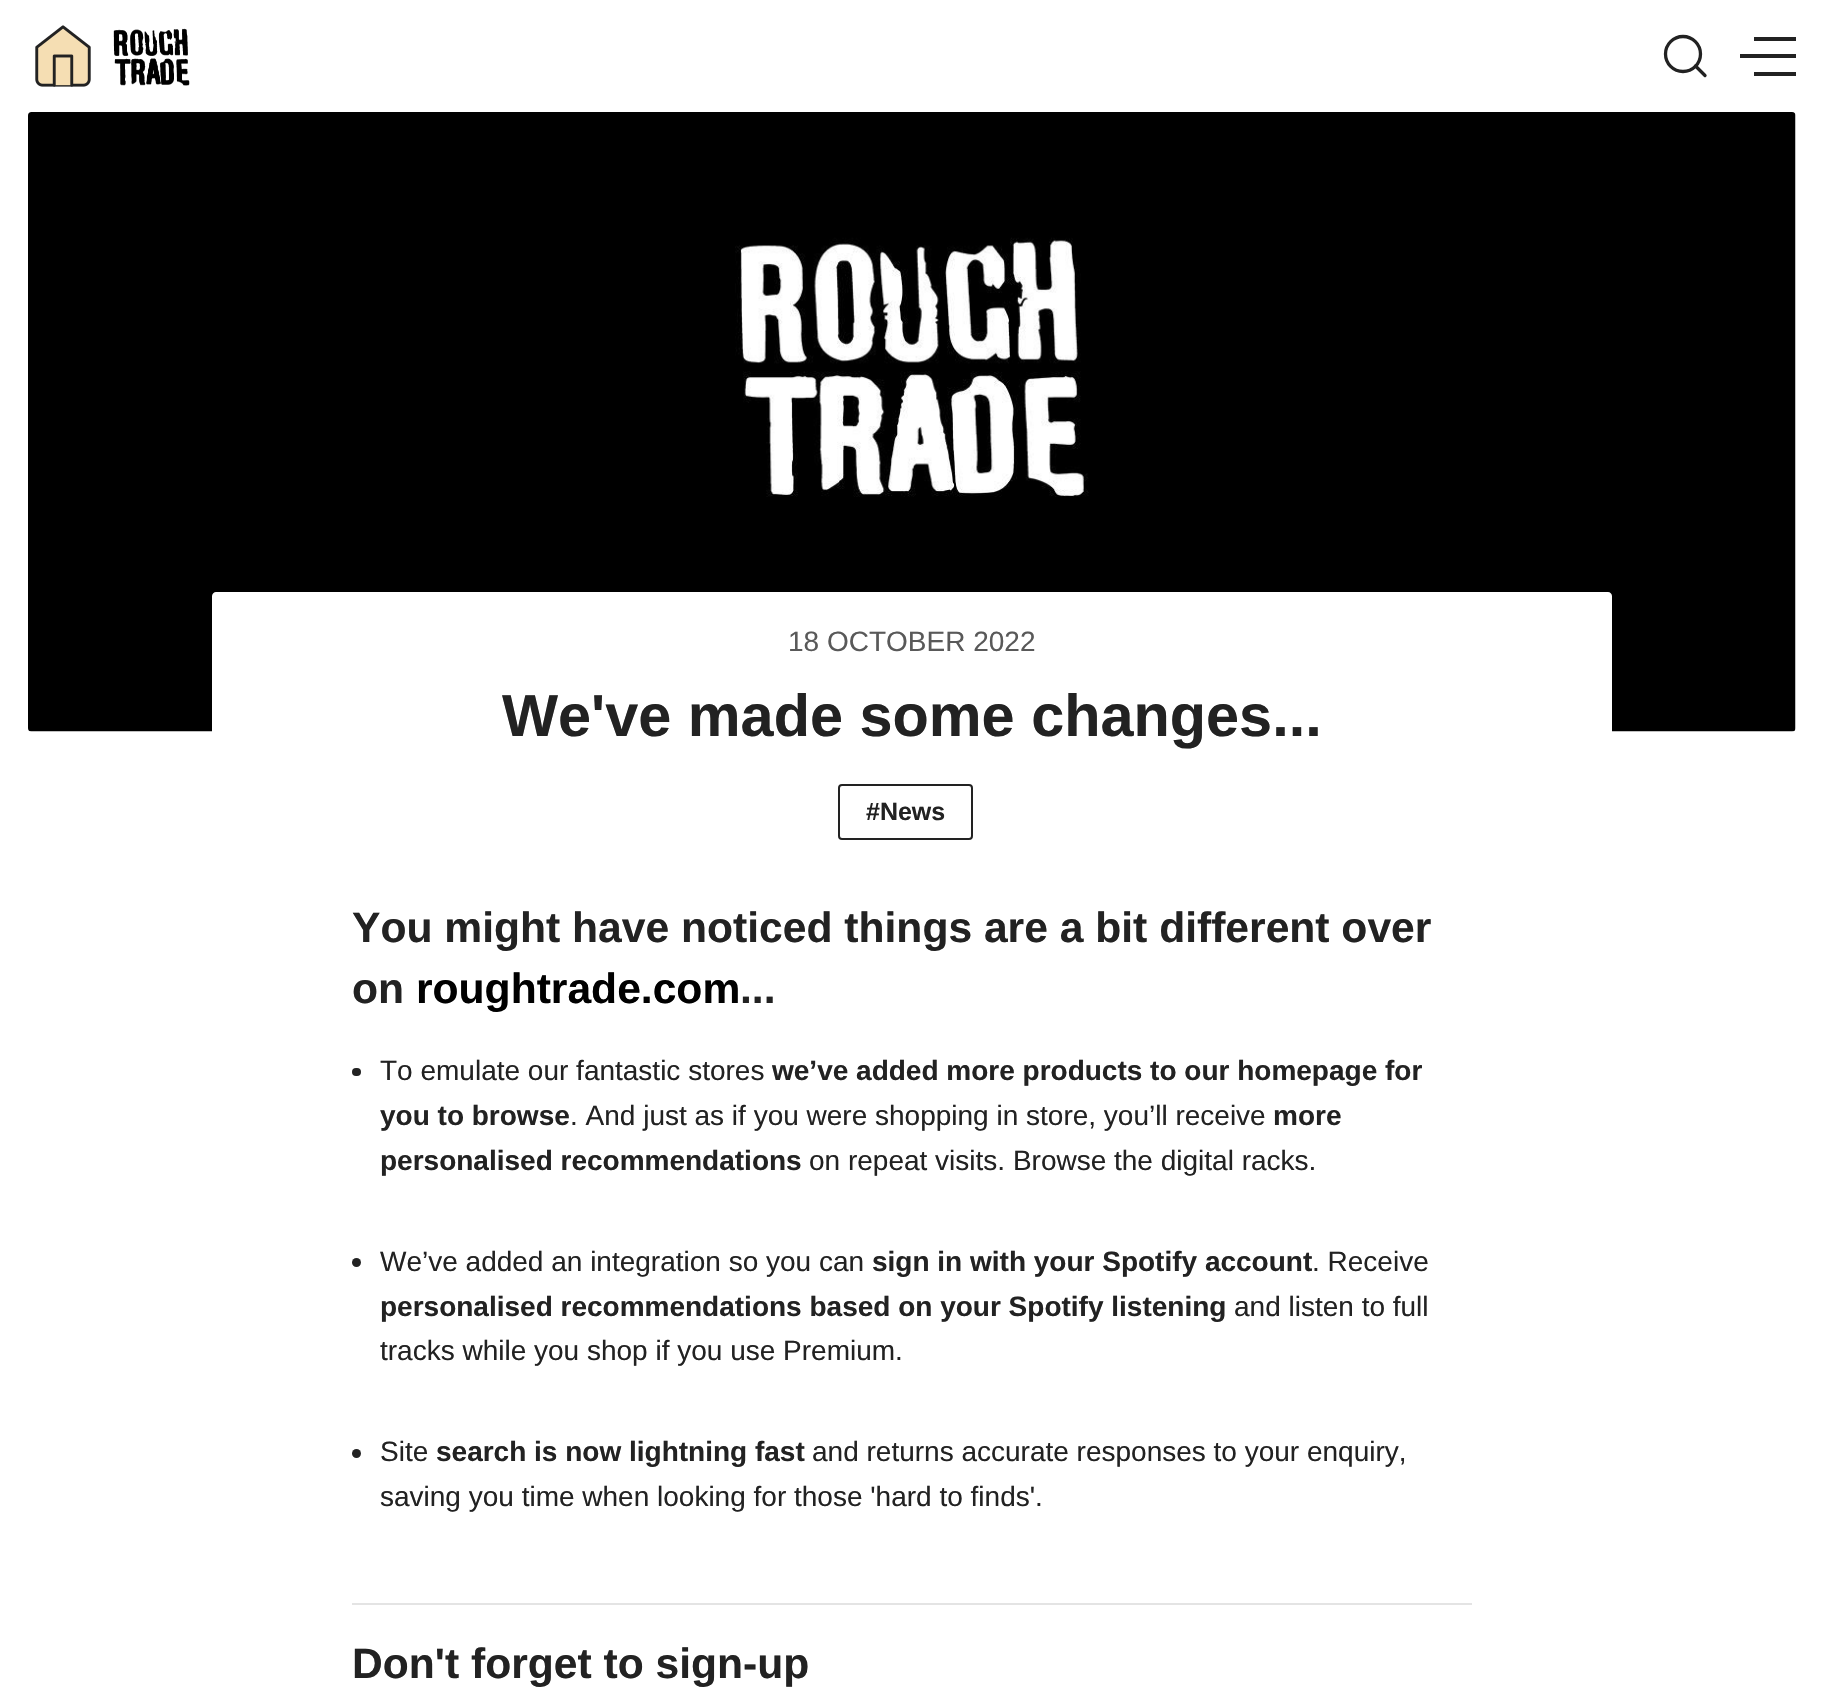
#include "include/core/SkBlurTypes.h"
#include "include/core/SkCanvas.h"
#include "include/core/SkData.h"
#include "include/core/SkFont.h"
#include "include/core/SkFontMgr.h"
#include "include/core/SkImage.h"
#include "include/core/SkMaskFilter.h"
#include "include/core/SkPaint.h"
#include "include/core/SkPathBuilder.h"
#include "include/core/SkTextBlob.h"
#include "include/effects/SkDashPathEffect.h"
#include "include/effects/SkGradientShader.h"
#include "include/utils/SkParsePath.h"

extern sk_sp<SkFontMgr> fontMgr;

void draw(SkCanvas* canvas) {
  SkPaint p;
  p.setAntiAlias(true);
  canvas->clear(SK_ColorWHITE);
  canvas->drawImageRect(SkImages::DeferredFromEncodedData(SkData::MakeFromFileName("images/1.png")), SkRect::MakeLTRB(35, 25, 91, 87), SkSamplingOptions());
  canvas->drawImageRect(SkImages::DeferredFromEncodedData(SkData::MakeFromFileName("images/2.png")), SkRect::MakeLTRB(113, 28, 190, 86), SkSamplingOptions());
  p.setStyle(SkPaint::kStroke_Style);
  p.setStrokeWidth(3.3f);
  p.setColor(SkColorSetRGB(34, 34, 34));
  canvas->drawCircle(1683, 54, 17.5f, p);
  p.setStrokeCap(SkPaint::kRound_Cap);
  p.setStrokeJoin(SkPaint::kRound_Join);
  canvas->drawPath(SkPathBuilder().moveTo(1705, 75.5f).lineTo(1695.5f, 66).detach(), p);
  p.setStyle(SkPaint::kFill_Style);
  canvas->drawRect(SkRect::MakeLTRB(1740, 54, 1796, 58), p);
  canvas->drawRect(SkRect::MakeLTRB(1754, 37, 1796, 41), p);
  canvas->drawRect(SkRect::MakeLTRB(1754, 72, 1796, 76), p);
  canvas->drawImageRect(SkImages::DeferredFromEncodedData(SkData::MakeFromFileName("images/3.png")), SkRect::MakeLTRB(28, 112, 1796, 732), SkSamplingOptions());
  p.setColor(SK_ColorWHITE);
  canvas->drawPath(SkPathBuilder().moveTo(216, 592).lineTo(1608, 592).cubicTo(1610, 592, 1612, 594, 1612, 596).lineTo(1612, 896).lineTo(212, 896).lineTo(212, 596).cubicTo(212, 594, 214, 592, 216, 592).close().detach(), p);
  p.setStyle(SkPaint::kStroke_Style);
  p.setStrokeWidth(2);
  p.setStrokeCap(SkPaint::kButt_Cap);
  p.setStrokeJoin(SkPaint::kMiter_Join);
  p.setColor(SkColorSetRGB(34, 34, 34));
  canvas->drawRoundRect(SkRect::MakeLTRB(839, 785, 972, 839), 3, 3, p);
  p.setStyle(SkPaint::kFill_Style);
  canvas->drawRoundRect(SkRect::MakeLTRB(352, 1068, 361, 1076), 4, 4, p);
  canvas->drawCircle(356.5f, 1262.5f, 4.5f, p);
  canvas->drawCircle(356.5f, 1453.5f, 4.5f, p);
  p.setColor(SkColorSetRGB(228, 228, 228));
  canvas->drawRect(SkRect::MakeLTRB(352, 1603, 1472, 1605), p);
  SkFont font1(fontMgr->matchFamilyStyle("Liberation Sans", SkFontStyle::Normal()), 28);
  font1.setSubpixel(true);
  p.setColor(SkColorSetRGB(89, 89, 89));
  canvas->drawString("18 OCTOBER 2022", 788, 651, font1, p);
  SkFont font2(fontMgr->matchFamilyStyle("Liberation Sans", SkFontStyle::Bold()), 59.4f);
  font2.setSubpixel(true);
  p.setColor(SkColorSetRGB(34, 34, 34));
  canvas->drawString("We've made some changes...", 502, 736, font2, p);
  SkFont font3(fontMgr->matchFamilyStyle("Liberation Sans", SkFontStyle::Bold()), 25);
  font3.setSubpixel(true);
  canvas->drawString("#News", 866, 820, font3, p);
  SkFont font4(fontMgr->matchFamilyStyle("Liberation Sans", SkFontStyle::Bold()), 42.6f);
  font4.setSubpixel(true);
  canvas->drawString("You might have noticed things are a bit different over", 352, 942, font4, p);
  canvas->drawString("on", 352, 1003, font4, p);
  p.setColor(SK_ColorBLACK);
  canvas->drawString("roughtrade.com", 416, 1003, font4, p);
  p.setColor(SkColorSetRGB(34, 34, 34));
  canvas->drawString("...", 740, 1003, font4, p);
  canvas->drawString("To emulate our fantastic stores", 380, 1080, font1, p);
  SkFont font5(fontMgr->matchFamilyStyle("Liberation Sans", SkFontStyle::Bold()), 28);
  font5.setSubpixel(true);
  canvas->drawString("we’ve added more products to our homepage for", 772, 1080, font5, p);
  canvas->drawString("you to browse", 380, 1125, font5, p);
  canvas->drawString(". And just as if you were shopping in store, you’ll receive", 570, 1125, font1, p);
  canvas->drawString("more", 1273, 1125, font5, p);
  canvas->drawString("personalised recommendations", 380, 1170, font5, p);
  canvas->drawString("on repeat visits. Browse the digital racks.", 809, 1170, font1, p);
  canvas->drawString("We’ve added an integration so you can", 380, 1271, font1, p);
  canvas->drawString("sign in with your Spotify account", 872, 1271, font5, p);
  canvas->drawString(". Receive", 1312, 1271, font1, p);
  canvas->drawString("personalised recommendations based on your Spotify listening", 380, 1316, font5, p);
  canvas->drawString("and listen to full", 1234, 1316, font1, p);
  canvas->drawString("tracks while you shop if you use Premium.", 380, 1360, font1, p);
  canvas->drawString("Site", 380, 1461, font1, p);
  canvas->drawString("search is now lightning fast", 436, 1461, font5, p);
  canvas->drawString("and returns accurate responses to your enquiry,", 812, 1461, font1, p);
  canvas->drawString("saving you time when looking for those 'hard to finds'.", 380, 1506, font1, p);
  canvas->drawString("Don't forget to sign-up", 352, 1678, font4, p);
}
